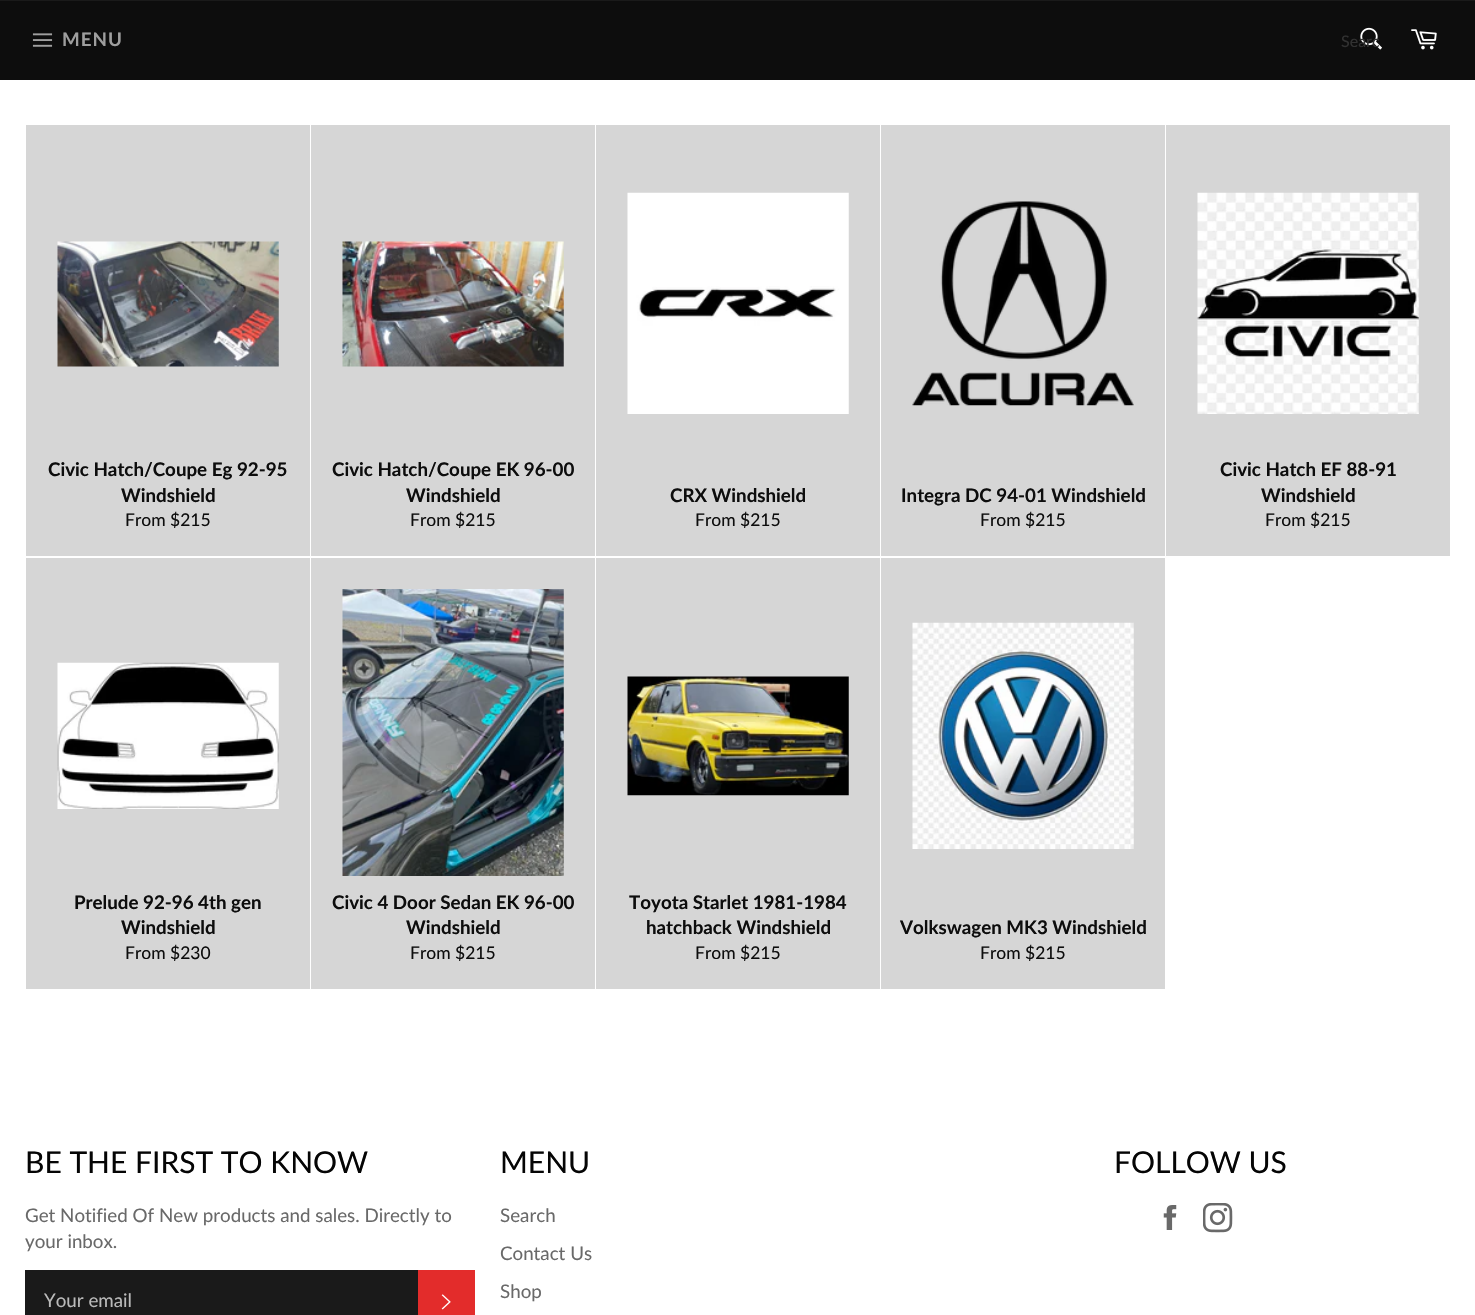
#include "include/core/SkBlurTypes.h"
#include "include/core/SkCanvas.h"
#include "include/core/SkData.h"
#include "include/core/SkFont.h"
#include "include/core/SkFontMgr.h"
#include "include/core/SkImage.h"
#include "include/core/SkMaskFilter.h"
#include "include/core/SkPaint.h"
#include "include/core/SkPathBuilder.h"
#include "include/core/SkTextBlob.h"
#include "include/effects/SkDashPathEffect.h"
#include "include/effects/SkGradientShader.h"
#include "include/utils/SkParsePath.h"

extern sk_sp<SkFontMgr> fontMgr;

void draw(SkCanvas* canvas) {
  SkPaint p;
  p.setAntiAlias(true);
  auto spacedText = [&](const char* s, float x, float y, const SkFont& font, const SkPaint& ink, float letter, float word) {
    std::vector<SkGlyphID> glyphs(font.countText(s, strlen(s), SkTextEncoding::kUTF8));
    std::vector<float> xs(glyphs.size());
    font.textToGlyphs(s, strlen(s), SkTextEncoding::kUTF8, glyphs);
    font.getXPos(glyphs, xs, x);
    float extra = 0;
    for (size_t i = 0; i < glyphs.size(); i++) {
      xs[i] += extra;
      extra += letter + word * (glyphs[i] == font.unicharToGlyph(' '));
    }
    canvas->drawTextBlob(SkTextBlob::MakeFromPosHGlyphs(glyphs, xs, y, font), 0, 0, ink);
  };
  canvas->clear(SK_ColorWHITE);
  p.setColor(SkColorSetRGB(13, 13, 13));
  canvas->drawRect(SkRect::MakeLTRB(0, 1, 1475, 80), p);
  p.setColor(SkColorSetRGB(26, 26, 26));
  canvas->drawRect(SkRect::MakeLTRB(0, 0, 1475, 1), p);
  canvas->drawImageRect(SkImages::DeferredFromEncodedData(SkData::MakeFromFileName("images/1.png")), SkRect::MakeLTRB(32, 33, 53, 47), SkSamplingOptions());
  canvas->drawImageRect(SkImages::DeferredFromEncodedData(SkData::MakeFromFileName("images/2.png")), SkRect::MakeLTRB(1360, 27, 1382, 50), SkSamplingOptions());
  canvas->drawImageRect(SkImages::DeferredFromEncodedData(SkData::MakeFromFileName("images/3.png")), SkRect::MakeLTRB(1411, 29, 1437, 50), SkSamplingOptions());
  p.setColor(SkColorSetRGB(214, 214, 214));
  canvas->drawRect(SkRect::MakeLTRB(26, 125, 310, 556), p);
  canvas->drawImageRect(SkImages::DeferredFromEncodedData(SkData::MakeFromFileName("images/4.png")), SkRect::MakeLTRB(57, 241, 279, 367), SkSamplingOptions());
  canvas->drawRect(SkRect::MakeLTRB(311, 125, 595, 556), p);
  canvas->drawImageRect(SkImages::DeferredFromEncodedData(SkData::MakeFromFileName("images/5.png")), SkRect::MakeLTRB(342, 241, 564, 367), SkSamplingOptions());
  canvas->drawRect(SkRect::MakeLTRB(596, 125, 880, 556), p);
  canvas->drawImageRect(SkImages::DeferredFromEncodedData(SkData::MakeFromFileName("images/6.png")), SkRect::MakeLTRB(627, 192, 849, 414), SkSamplingOptions());
  canvas->drawRect(SkRect::MakeLTRB(881, 125, 1165, 556), p);
  canvas->drawImageRect(SkImages::DeferredFromEncodedData(SkData::MakeFromFileName("images/7.png")), SkRect::MakeLTRB(912, 201, 1134, 406), SkSamplingOptions());
  canvas->drawRect(SkRect::MakeLTRB(1166, 125, 1450, 556), p);
  canvas->drawImageRect(SkImages::DeferredFromEncodedData(SkData::MakeFromFileName("images/8.png")), SkRect::MakeLTRB(1197, 192, 1419, 414), SkSamplingOptions());
  canvas->drawRect(SkRect::MakeLTRB(26, 558, 310, 989), p);
  canvas->drawImageRect(SkImages::DeferredFromEncodedData(SkData::MakeFromFileName("images/9.png")), SkRect::MakeLTRB(57, 662, 279, 809), SkSamplingOptions());
  canvas->drawRect(SkRect::MakeLTRB(311, 558, 595, 989), p);
  canvas->drawImageRect(SkImages::DeferredFromEncodedData(SkData::MakeFromFileName("images/10.png")), SkRect::MakeLTRB(342, 589, 564, 876), SkSamplingOptions());
  canvas->drawRect(SkRect::MakeLTRB(596, 558, 880, 989), p);
  canvas->drawImageRect(SkImages::DeferredFromEncodedData(SkData::MakeFromFileName("images/11.png")), SkRect::MakeLTRB(627, 676, 849, 796), SkSamplingOptions());
  canvas->drawRect(SkRect::MakeLTRB(881, 558, 1165, 989), p);
  canvas->drawImageRect(SkImages::DeferredFromEncodedData(SkData::MakeFromFileName("images/12.png")), SkRect::MakeLTRB(912, 622, 1134, 849), SkSamplingOptions());
  p.setColor(SkColorSetRGB(26, 26, 26));
  canvas->drawRect(SkRect::MakeLTRB(25, 1270, 418, 1315), p);
  p.setColor(SkColorSetRGB(227, 44, 43));
  canvas->drawRect(SkRect::MakeLTRB(418, 1270, 475, 1315), p);
  canvas->drawImageRect(SkImages::DeferredFromEncodedData(SkData::MakeFromFileName("images/13.png")), SkRect::MakeLTRB(441, 1294, 451, 1310), SkSamplingOptions());
  canvas->drawImageRect(SkImages::DeferredFromEncodedData(SkData::MakeFromFileName("images/14.png")), SkRect::MakeLTRB(1163, 1205, 1177, 1230), SkSamplingOptions());
  canvas->drawImageRect(SkImages::DeferredFromEncodedData(SkData::MakeFromFileName("images/15.png")), SkRect::MakeLTRB(1203, 1203, 1233, 1233), SkSamplingOptions());
  SkFont font1(fontMgr->matchFamilyStyle("Lato", SkFontStyle::Bold()), 18.75f);
  font1.setSubpixel(true);
  p.setColor(SkColorSetRGB(158, 158, 158));
  spacedText("MENU", 62, 46, font1, p, 1, 0);
  SkFont font2(fontMgr->matchFamilyStyle("Lato", SkFontStyle::Normal()), 16);
  font2.setSubpixel(true);
  p.setColor(SkColorSetRGB(49, 49, 49));
  canvas->drawString("Searc", 1341, 47, font2, p);
  p.setColor(SkColorSetRGB(13, 13, 13));
  canvas->drawString("Civic Hatch/Coupe Eg 92-95", 48, 476, font1, p);
  canvas->drawString("Windshield", 121, 502, font1, p);
  SkFont font3(fontMgr->matchFamilyStyle("Lato", SkFontStyle::Normal()), 17.5f);
  font3.setSubpixel(true);
  canvas->drawString("From $215", 125, 526, font3, p);
  canvas->drawString("Civic Hatch/Coupe EK 96-00", 332, 476, font1, p);
  canvas->drawString("Windshield", 406, 502, font1, p);
  canvas->drawString("From $215", 410, 526, font3, p);
  canvas->drawString("CRX Windshield", 670, 502, font1, p);
  canvas->drawString("From $215", 695, 526, font3, p);
  canvas->drawString("Integra DC 94-01 Windshield", 901, 502, font1, p);
  canvas->drawString("From $215", 980, 526, font3, p);
  canvas->drawString("Civic Hatch EF 88-91", 1220, 476, font1, p);
  canvas->drawString("Windshield", 1261, 502, font1, p);
  canvas->drawString("From $215", 1265, 526, font3, p);
  canvas->drawString("Prelude 92-96 4th gen", 74, 909, font1, p);
  canvas->drawString("Windshield", 121, 934, font1, p);
  canvas->drawString("From $230", 125, 959, font3, p);
  canvas->drawString("Civic 4 Door Sedan EK 96-00", 332, 909, font1, p);
  canvas->drawString("Windshield", 406, 934, font1, p);
  canvas->drawString("From $215", 410, 959, font3, p);
  canvas->drawString("Toyota Starlet 1981-1984", 629, 909, font1, p);
  canvas->drawString("hatchback Windshield", 646, 934, font1, p);
  canvas->drawString("From $215", 695, 959, font3, p);
  canvas->drawString("Volkswagen MK3 Windshield", 900, 934, font1, p);
  canvas->drawString("From $215", 980, 959, font3, p);
  SkFont font4(fontMgr->matchFamilyStyle("Lato", SkFontStyle::Normal()), 30);
  font4.setSubpixel(true);
  p.setColor(SkColorSetRGB(5, 5, 5));
  canvas->drawString("BE THE FIRST TO KNOW", 25, 1173, font4, p);
  SkFont font5(fontMgr->matchFamilyStyle("Lato", SkFontStyle::Normal()), 18.75f);
  font5.setSubpixel(true);
  p.setColor(SkColorSetRGB(105, 105, 105));
  canvas->drawString("Get Notified Of New products and sales. Directly to", 25, 1222, font5, p);
  canvas->drawString("your inbox.", 25, 1248, font5, p);
  p.setColor(SkColorSetRGB(186, 186, 186));
  canvas->drawString("Your email", 44, 1307, font5, p);
  p.setColor(SkColorSetRGB(5, 5, 5));
  canvas->drawString("MENU", 500, 1173, font4, p);
  p.setColor(SkColorSetRGB(105, 105, 105));
  canvas->drawString("Search", 500, 1222, font5, p);
  canvas->drawString("Contact Us", 500, 1260, font5, p);
  canvas->drawString("Shop", 500, 1298, font5, p);
  p.setColor(SkColorSetRGB(5, 5, 5));
  canvas->drawString("FOLLOW US", 1114, 1173, font4, p);
}
